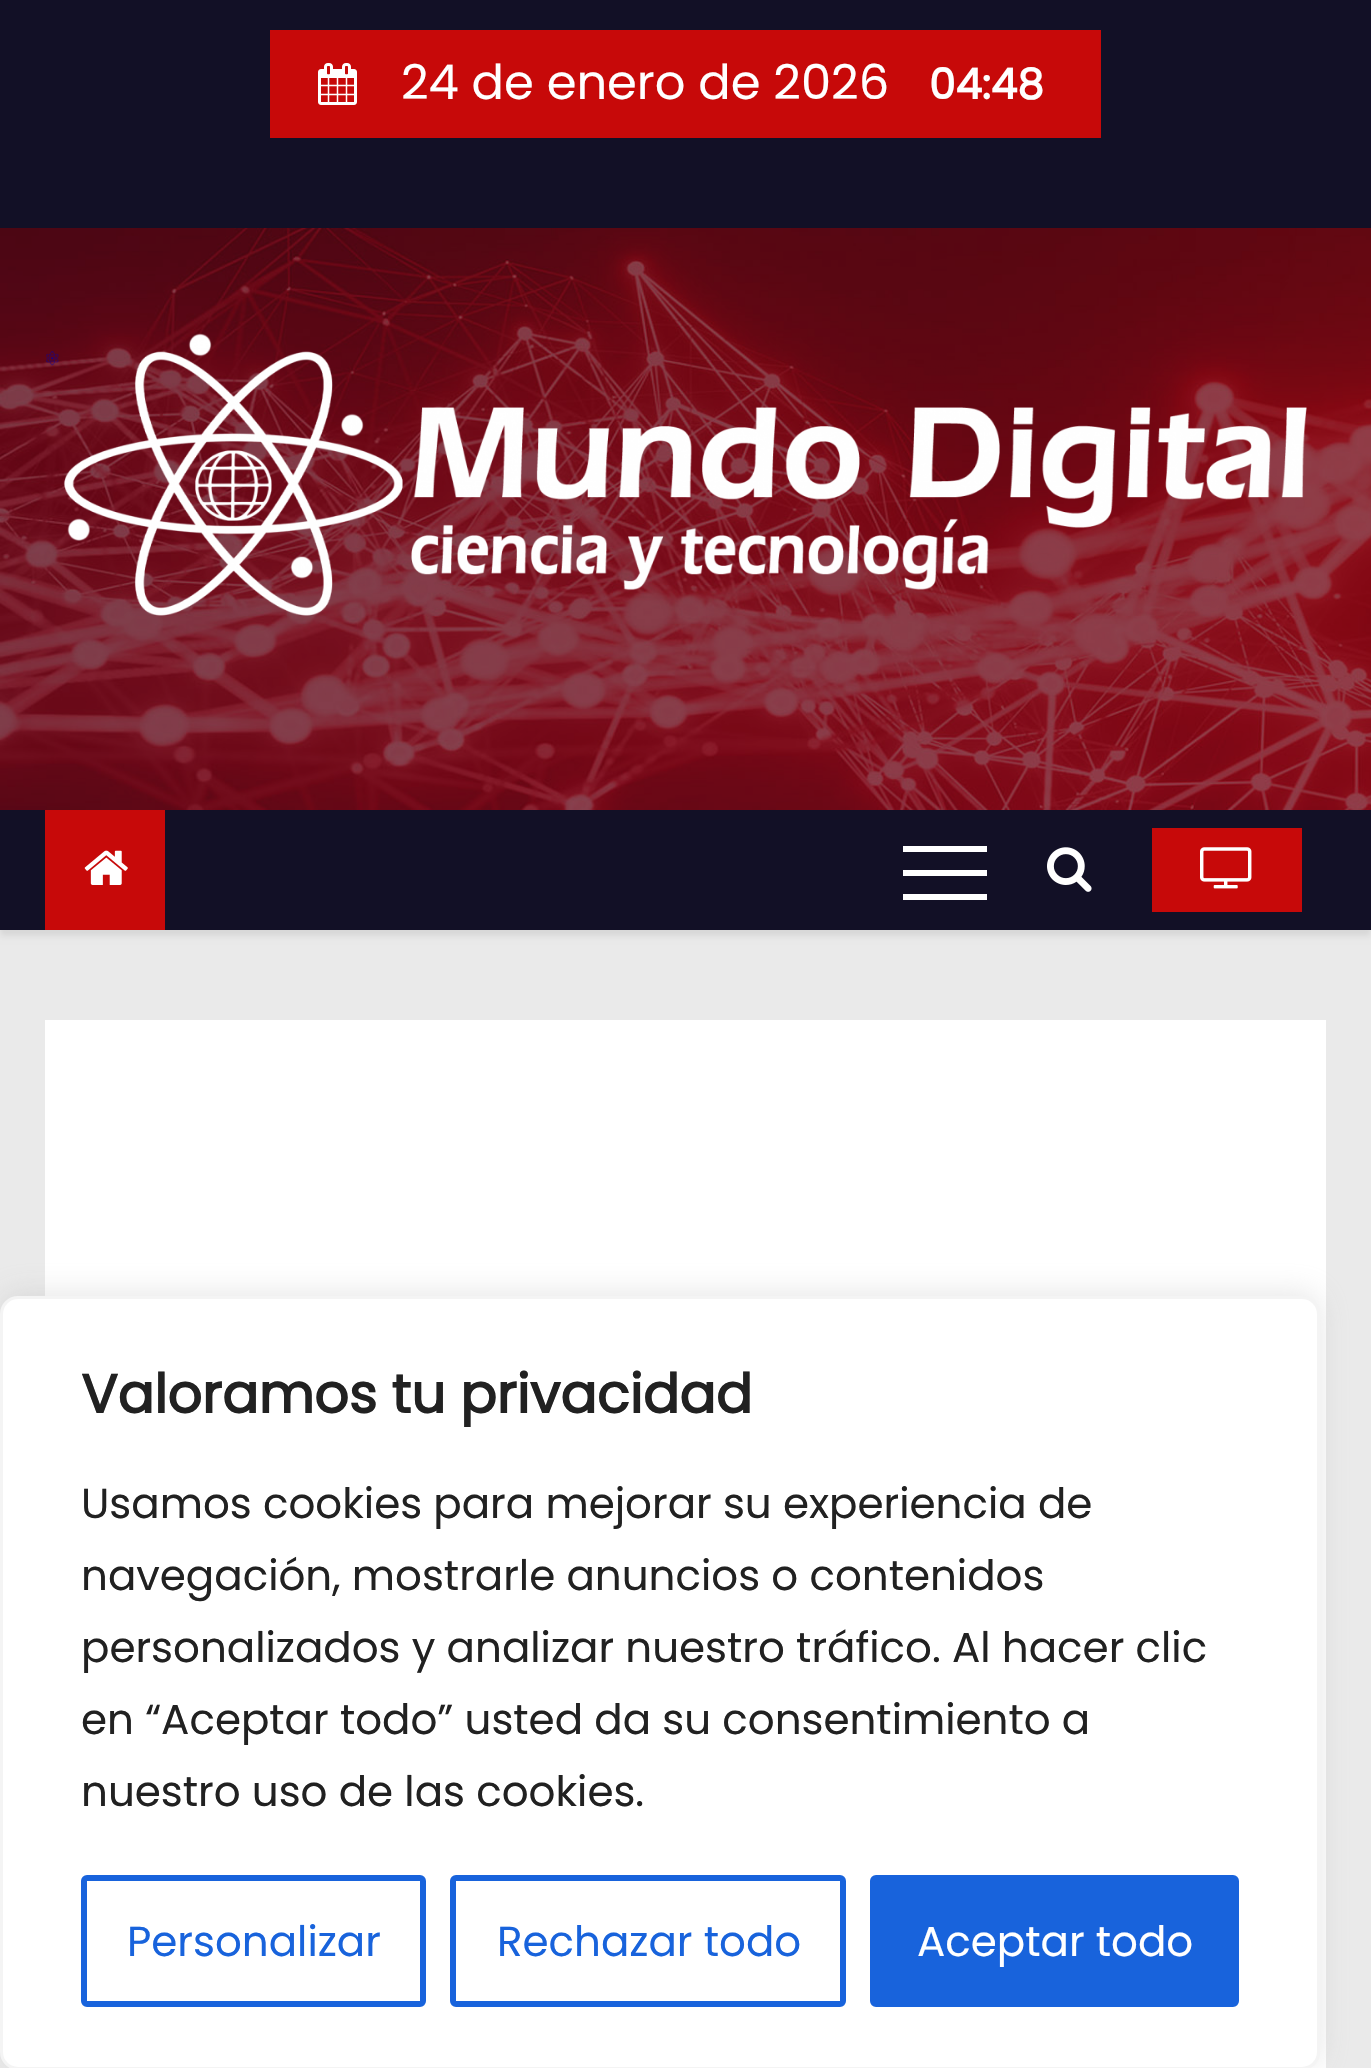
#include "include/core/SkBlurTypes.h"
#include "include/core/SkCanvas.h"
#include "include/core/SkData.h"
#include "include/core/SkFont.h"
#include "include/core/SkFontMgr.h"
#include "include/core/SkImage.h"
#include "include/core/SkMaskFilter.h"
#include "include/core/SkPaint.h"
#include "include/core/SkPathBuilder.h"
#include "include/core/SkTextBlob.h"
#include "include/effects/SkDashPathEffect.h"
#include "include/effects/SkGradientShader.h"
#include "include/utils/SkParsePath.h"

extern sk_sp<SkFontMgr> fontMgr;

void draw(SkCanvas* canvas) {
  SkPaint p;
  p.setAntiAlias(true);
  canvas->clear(SkColorSetRGB(234, 234, 234));
  p.setColor(SkColorSetRGB(18, 16, 38));
  canvas->drawRect(SkRect::MakeLTRB(0, 0, 1371, 228), p);
  p.setColor(SkColorSetRGB(199, 9, 9));
  canvas->drawRect(SkRect::MakeLTRB(270, 30, 1101, 138), p);
  canvas->drawImageRect(SkImages::DeferredFromEncodedData(SkData::MakeFromFileName("images/1.png")), SkRect::MakeLTRB(318, 63, 357, 105), SkSamplingOptions());
  canvas->drawImageRect(SkImages::DeferredFromEncodedData(SkData::MakeFromFileName("images/2.png")), SkRect::MakeLTRB(0, 228, 1371, 810), SkSamplingOptions());
  canvas->drawImageRect(SkImages::DeferredFromEncodedData(SkData::MakeFromFileName("images/3.png")), SkRect::MakeLTRB(46, 333, 1307, 616), SkSamplingOptions());
  p.setColor(SkColorSetARGB(20, 0, 0, 0));
  p.setMaskFilter(SkMaskFilter::MakeBlur(kNormal_SkBlurStyle, 3));
  canvas->drawRect(SkRect::MakeLTRB(0, 816, 1371, 936), p);
  p.setMaskFilter(nullptr);
  p.setColor(SkColorSetRGB(18, 16, 38));
  canvas->drawRect(SkRect::MakeLTRB(0, 810, 1371, 930), p);
  p.setColor(SkColorSetRGB(199, 9, 9));
  canvas->drawRect(SkRect::MakeLTRB(45, 810, 165, 930), p);
  canvas->drawImageRect(SkImages::DeferredFromEncodedData(SkData::MakeFromFileName("images/4.png")), SkRect::MakeLTRB(84, 850, 128, 885), SkSamplingOptions());
  p.setColor(SK_ColorWHITE);
  canvas->drawRect(SkRect::MakeLTRB(903, 846, 987, 852), p);
  canvas->drawRect(SkRect::MakeLTRB(903, 870, 987, 876), p);
  canvas->drawRect(SkRect::MakeLTRB(903, 894, 987, 900), p);
  canvas->drawImageRect(SkImages::DeferredFromEncodedData(SkData::MakeFromFileName("images/5.png")), SkRect::MakeLTRB(1047, 847, 1092, 892), SkSamplingOptions());
  p.setColor(SkColorSetRGB(199, 9, 9));
  canvas->drawRect(SkRect::MakeLTRB(1152, 828, 1302, 912), p);
  canvas->drawImageRect(SkImages::DeferredFromEncodedData(SkData::MakeFromFileName("images/6.png")), SkRect::MakeLTRB(1200, 847, 1252, 889), SkSamplingOptions());
  p.setColor(SK_ColorWHITE);
  canvas->drawRect(SkRect::MakeLTRB(45, 1020, 1326, 2068), p);
  p.setColor(SkColorSetARGB(77, 172, 171, 171));
  p.setMaskFilter(SkMaskFilter::MakeBlur(kNormal_SkBlurStyle, 15));
  canvas->drawRoundRect(SkRect::MakeLTRB(0, 1293, 1320, 2067), 18, 18, p);
  p.setMaskFilter(nullptr);
  p.setColor(SK_ColorWHITE);
  canvas->drawRoundRect(SkRect::MakeLTRB(1.5f, 1297.5f, 1318.5f, 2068.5f), 16.5f, 16.5f, p);
  p.setStyle(SkPaint::kStroke_Style);
  p.setStrokeWidth(3);
  p.setColor(SkColorSetRGB(244, 244, 244));
  canvas->drawRoundRect(SkRect::MakeLTRB(1.5f, 1297.5f, 1318.5f, 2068.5f), 16.5f, 16.5f, p);
  p.setStrokeWidth(6);
  p.setColor(SkColorSetRGB(24, 99, 220));
  canvas->drawRoundRect(SkRect::MakeLTRB(84, 1878, 423, 2004), 3, 3, p);
  canvas->drawRoundRect(SkRect::MakeLTRB(453, 1878, 843, 2004), 3, 3, p);
  p.setStyle(SkPaint::kFill_Style);
  canvas->drawRoundRect(SkRect::MakeLTRB(873, 1878, 1236, 2004), 3, 3, p);
  p.setStyle(SkPaint::kStroke_Style);
  canvas->drawRoundRect(SkRect::MakeLTRB(873, 1878, 1236, 2004), 3, 3, p);
  SkFont font1(fontMgr->matchFamilyStyle("Poppins", SkFontStyle::Normal()), 48);
  font1.setSubpixel(true);
  p.setStyle(SkPaint::kFill_Style);
  p.setColor(SK_ColorWHITE);
  canvas->drawString("24 de enero de 2026", 401, 99, font1, p);
  SkFont font2(fontMgr->matchFamilyStyle("Poppins", SkFontStyle::Bold()), 42);
  font2.setSubpixel(true);
  canvas->drawString("04:48", 929, 99, font2, p);
  SkFont font3(fontMgr->matchFamilyStyle("Poppins", SkFontStyle::Bold()), 54);
  font3.setSubpixel(true);
  p.setColor(SkColorSetRGB(33, 33, 33));
  canvas->drawString("Valoramos tu privacidad", 81, 1413, font3, p);
  SkFont font4(fontMgr->matchFamilyStyle("Poppins", SkFontStyle::Normal()), 42);
  font4.setSubpixel(true);
  canvas->drawString("Usamos cookies para mejorar su experiencia de", 81, 1518, font4, p);
  canvas->drawString("navegación, mostrarle anuncios o contenidos", 81, 1590, font4, p);
  canvas->drawString("personalizados y analizar nuestro tráfico. Al hacer clic", 81, 1662, font4, p);
  canvas->drawString("en “Aceptar todo” usted da su consentimiento a", 81, 1734, font4, p);
  canvas->drawString("nuestro uso de las cookies.", 81, 1806, font4, p);
  p.setColor(SkColorSetRGB(24, 99, 220));
  canvas->drawString("Personalizar", 127, 1956, font4, p);
  canvas->drawString("Rechazar todo", 497, 1956, font4, p);
  p.setColor(SK_ColorWHITE);
  canvas->drawString("Aceptar todo", 917, 1956, font4, p);
}
